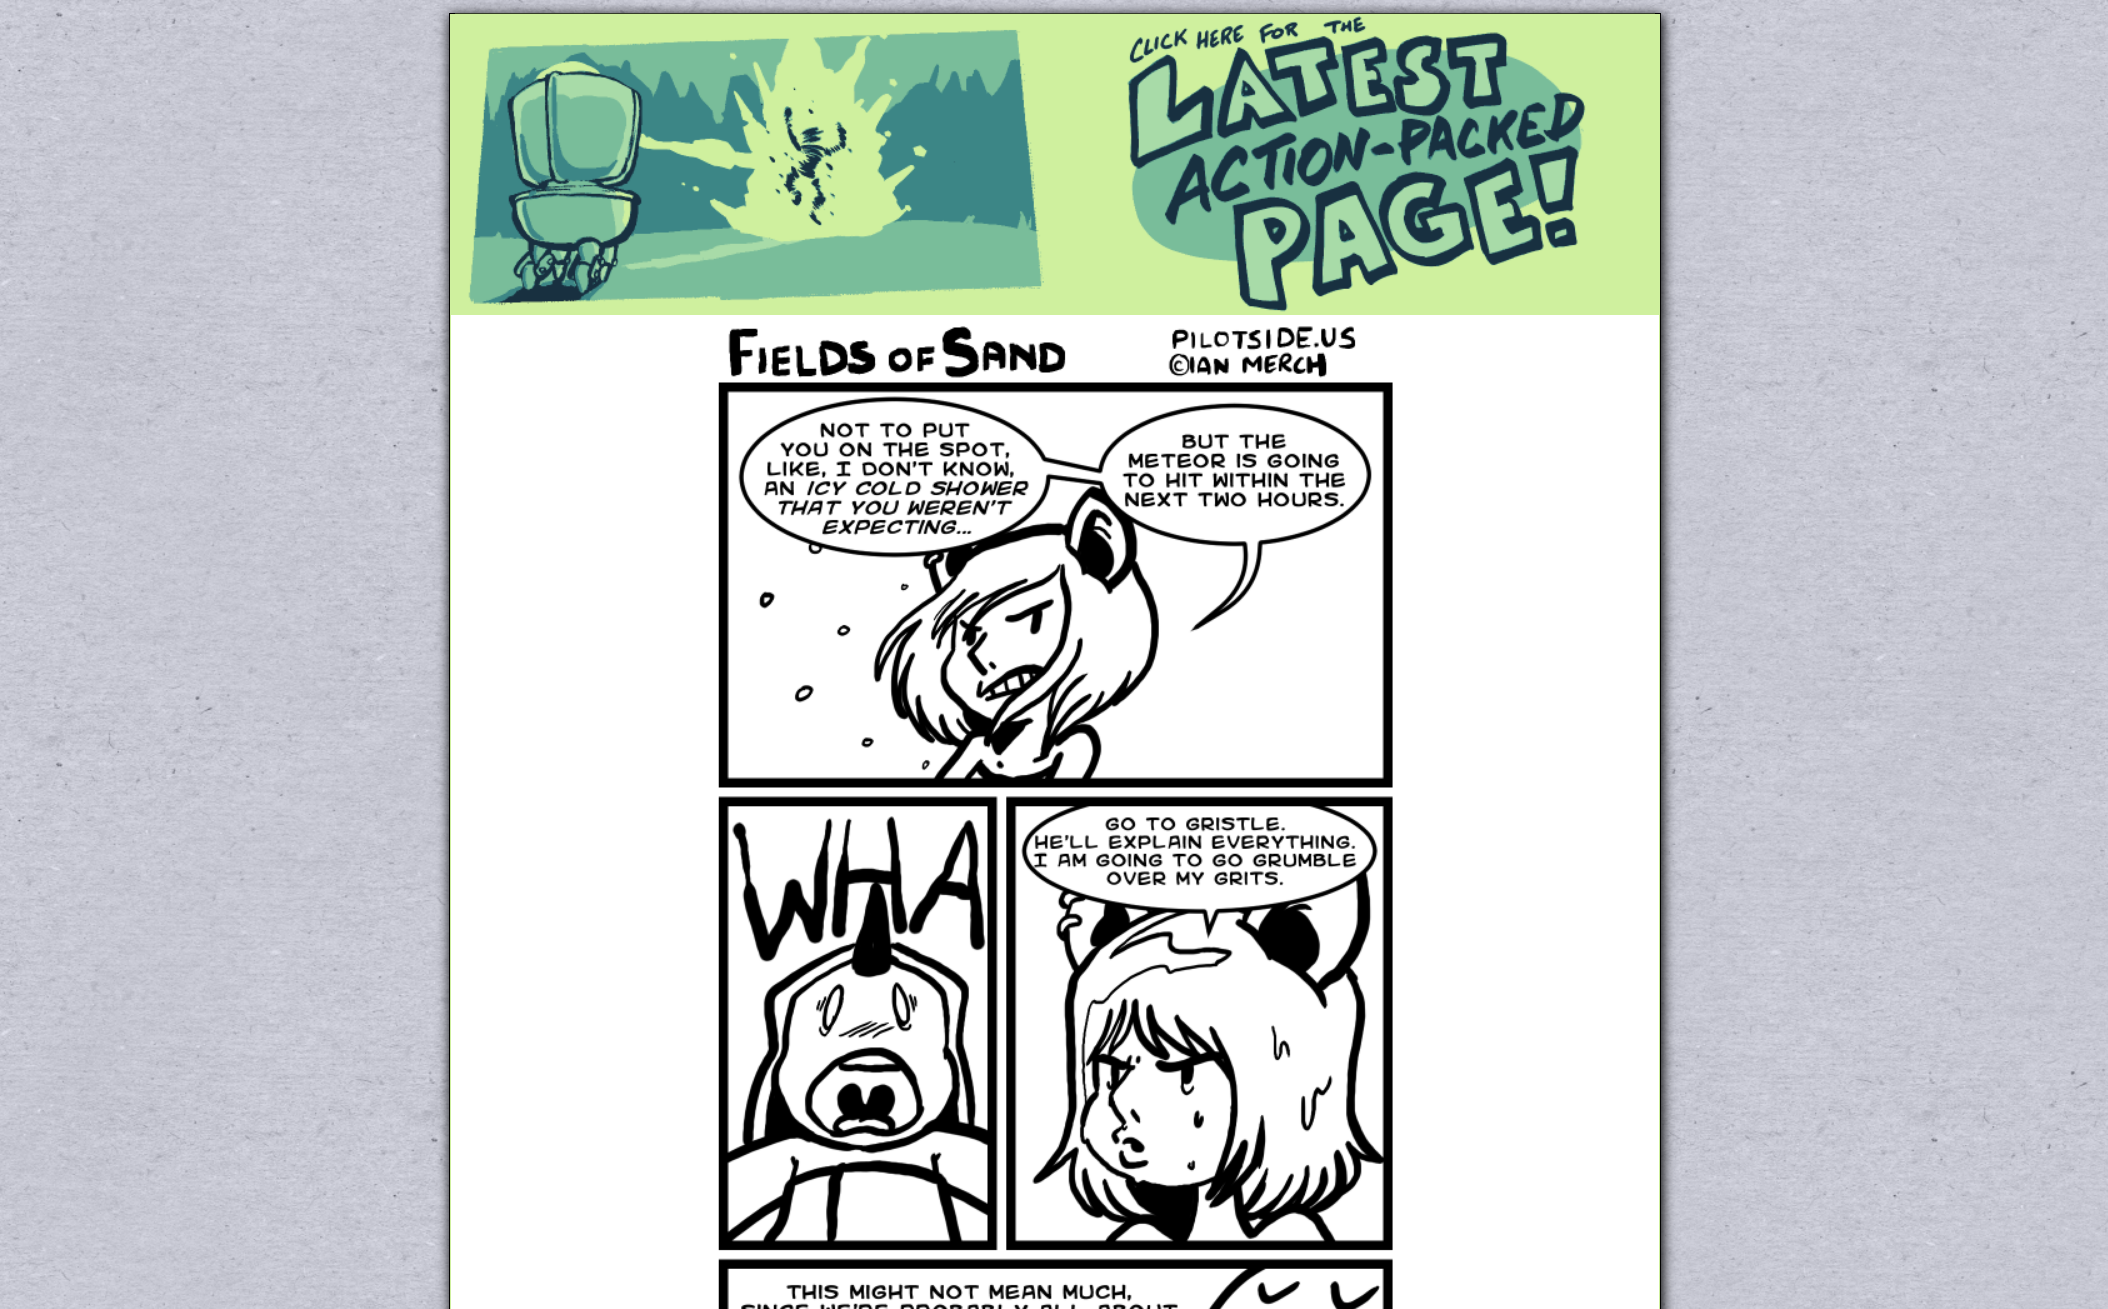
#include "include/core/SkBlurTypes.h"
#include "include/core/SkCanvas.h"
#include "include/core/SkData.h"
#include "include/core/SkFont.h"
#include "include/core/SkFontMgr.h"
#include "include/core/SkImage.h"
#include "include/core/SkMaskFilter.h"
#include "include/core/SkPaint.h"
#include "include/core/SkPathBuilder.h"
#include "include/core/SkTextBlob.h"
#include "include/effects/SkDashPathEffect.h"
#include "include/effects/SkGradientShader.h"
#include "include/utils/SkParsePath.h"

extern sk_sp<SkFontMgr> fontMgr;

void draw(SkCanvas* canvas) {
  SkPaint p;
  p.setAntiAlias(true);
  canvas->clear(SK_ColorWHITE);
  canvas->drawImageRect(SkImages::DeferredFromEncodedData(SkData::MakeFromFileName("images/1.png")), SkRect::MakeLTRB(0, 0, 2108, 1309), SkSamplingOptions());
  p.setColor(SK_ColorBLACK);
  p.setMaskFilter(SkMaskFilter::MakeBlur(kNormal_SkBlurStyle, 6));
  canvas->drawRect(SkRect::MakeLTRB(450, 15, 1663, 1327), p);
  p.setMaskFilter(nullptr);
  p.setColor(SkColorSetRGB(207, 240, 158));
  canvas->drawRect(SkRect::MakeLTRB(449.5f, 13.5f, 1660.5f, 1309.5f), p);
  p.setStyle(SkPaint::kStroke_Style);
  p.setStrokeWidth(1);
  p.setColor(SK_ColorBLACK);
  canvas->drawRect(SkRect::MakeLTRB(449.5f, 13.5f, 1660.5f, 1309.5f), p);
  canvas->drawImageRect(SkImages::DeferredFromEncodedData(SkData::MakeFromFileName("images/2.png")), SkRect::MakeLTRB(455, 13, 1655, 312), SkSamplingOptions());
  p.setStyle(SkPaint::kFill_Style);
  p.setColor(SK_ColorWHITE);
  canvas->drawRect(SkRect::MakeLTRB(451, 315, 1659, 1309), p);
  canvas->drawImageRect(SkImages::DeferredFromEncodedData(SkData::MakeFromFileName("images/3.png")), SkRect::MakeLTRB(718, 326, 1393, 1309), SkSamplingOptions());
}
